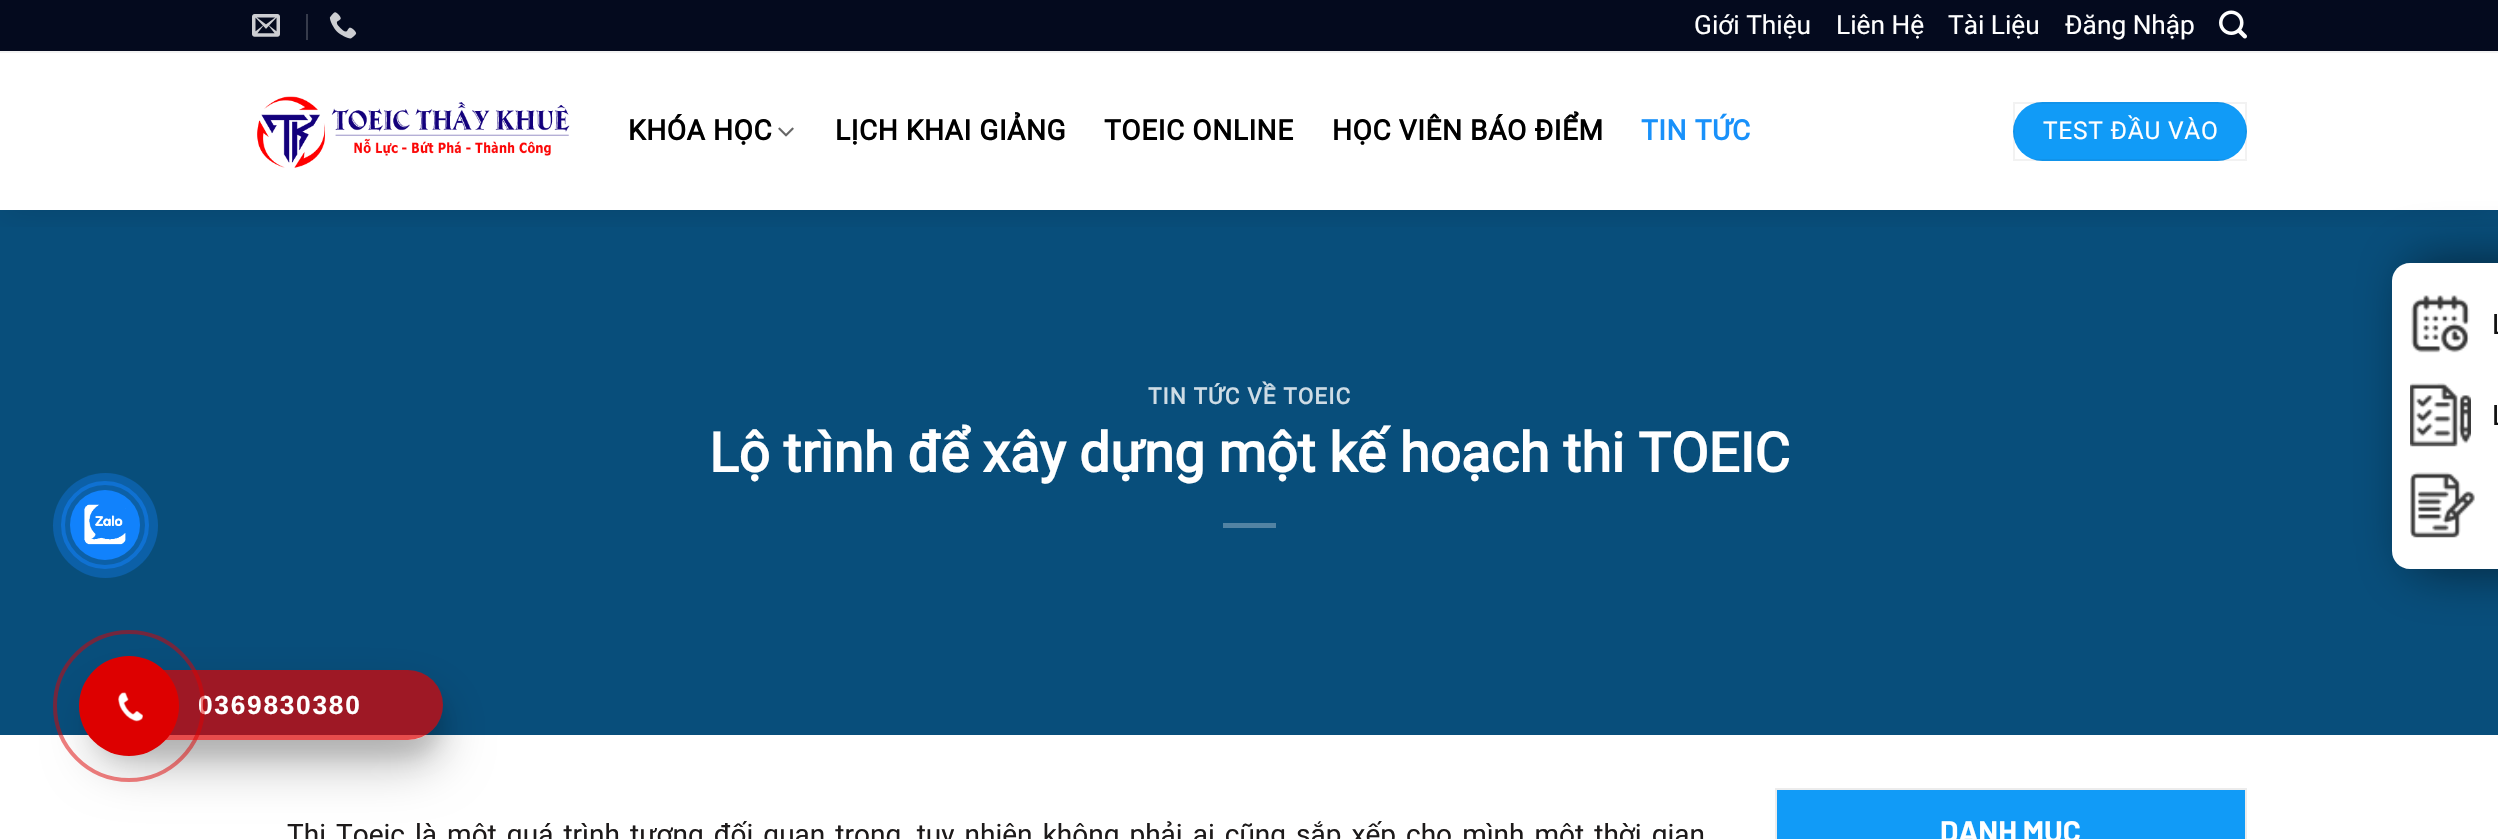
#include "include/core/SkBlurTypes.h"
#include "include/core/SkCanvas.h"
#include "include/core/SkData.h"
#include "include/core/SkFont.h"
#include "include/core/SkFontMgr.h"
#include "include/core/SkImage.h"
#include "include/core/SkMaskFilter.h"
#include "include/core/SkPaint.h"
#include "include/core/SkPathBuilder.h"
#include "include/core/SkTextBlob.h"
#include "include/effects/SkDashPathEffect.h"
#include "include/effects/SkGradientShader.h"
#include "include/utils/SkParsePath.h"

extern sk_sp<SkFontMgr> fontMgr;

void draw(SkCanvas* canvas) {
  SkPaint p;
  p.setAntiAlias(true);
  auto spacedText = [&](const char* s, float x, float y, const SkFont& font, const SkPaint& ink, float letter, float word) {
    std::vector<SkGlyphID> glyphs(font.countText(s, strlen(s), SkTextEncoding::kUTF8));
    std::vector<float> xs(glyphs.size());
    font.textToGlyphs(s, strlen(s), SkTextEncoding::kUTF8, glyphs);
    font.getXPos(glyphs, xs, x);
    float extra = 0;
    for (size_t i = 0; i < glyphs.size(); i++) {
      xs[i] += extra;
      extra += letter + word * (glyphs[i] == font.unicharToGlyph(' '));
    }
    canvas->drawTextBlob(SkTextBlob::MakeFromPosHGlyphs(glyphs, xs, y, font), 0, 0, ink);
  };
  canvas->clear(SK_ColorWHITE);
  p.setColor(SkColorSetRGB(8, 78, 123));
  canvas->drawRect(SkRect::MakeLTRB(0, 210, 2498, 735), p);
  canvas->save();
  canvas->clipRect(SkRect::MakeLTRB(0, 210, 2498, 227));
  p.setColor(SkColorSetARGB(31, 0, 0, 0));
  p.setMaskFilter(SkMaskFilter::MakeBlur(kNormal_SkBlurStyle, 17.5f));
  canvas->drawRect(SkRect::MakeLTRB(2, 53, 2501, 210), p);
  p.setMaskFilter(nullptr);
  canvas->restore();
  p.setColor(SkColorSetRGB(4, 10, 30));
  canvas->drawRect(SkRect::MakeLTRB(0, 0, 2498, 51), p);
  p.setColor(SkColorSetRGB(242, 242, 242));
  canvas->drawRect(SkRect::MakeLTRB(0, 51, 2498, 53), p);
  canvas->drawImageRect(SkImages::DeferredFromEncodedData(SkData::MakeFromFileName("images/1.png")), SkRect::MakeLTRB(252, 14, 280, 37), SkSamplingOptions());
  p.setColor(SkColorSetRGB(54, 59, 75));
  canvas->drawRect(SkRect::MakeLTRB(306, 14, 308, 40), p);
  canvas->drawImageRect(SkImages::DeferredFromEncodedData(SkData::MakeFromFileName("images/2.png")), SkRect::MakeLTRB(329, 12, 357, 39), SkSamplingOptions());
  canvas->drawImageRect(SkImages::DeferredFromEncodedData(SkData::MakeFromFileName("images/3.png")), SkRect::MakeLTRB(2219, 10, 2247, 39), SkSamplingOptions());
  canvas->drawImageRect(SkImages::DeferredFromEncodedData(SkData::MakeFromFileName("images/4.png")), SkRect::MakeLTRB(257, 96, 570, 168), SkSamplingOptions());
  canvas->drawImageRect(SkImages::DeferredFromEncodedData(SkData::MakeFromFileName("images/5.png")), SkRect::MakeLTRB(778, 127, 794, 137), SkSamplingOptions());
  p.setColor(SkColorSetRGB(17, 155, 247));
  canvas->drawRoundRect(SkRect::MakeLTRB(2013, 102, 2247, 161), 29.5f, 29.5f, p);
  p.setStyle(SkPaint::kStroke_Style);
  p.setStrokeWidth(2);
  p.setColor(SkColorSetARGB(13, 0, 0, 0));
  canvas->drawRect(SkRect::MakeLTRB(2014, 103, 2246, 160), p);
  p.setStyle(SkPaint::kFill_Style);
  p.setColor(SkColorSetRGB(82, 131, 163));
  canvas->drawRect(SkRect::MakeLTRB(1223, 523, 1276, 528), p);
  p.setColor(SkColorSetRGB(17, 155, 247));
  canvas->drawRect(SkRect::MakeLTRB(1776, 789, 2246, 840), p);
  p.setStyle(SkPaint::kStroke_Style);
  p.setColor(SkColorSetRGB(236, 236, 236));
  canvas->drawRect(SkRect::MakeLTRB(1776, 789, 2246, 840), p);
  p.setStyle(SkPaint::kFill_Style);
  p.setColor(SkColorSetARGB(140, 0, 0, 0));
  p.setMaskFilter(SkMaskFilter::MakeBlur(kNormal_SkBlurStyle, 26));
  canvas->drawRoundRect(SkRect::MakeLTRB(2410, 263, 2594, 569), 18, 18, p);
  p.setMaskFilter(nullptr);
  p.setColor(SK_ColorWHITE);
  canvas->drawPath(SkPathBuilder().moveTo(2410, 263).lineTo(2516, 263).lineTo(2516, 569).lineTo(2410, 569).cubicTo(2400, 569, 2392, 561, 2392, 551).lineTo(2392, 281).cubicTo(2392, 271, 2400, 263, 2410, 263).close().detach(), p);
  canvas->drawImageRect(SkImages::DeferredFromEncodedData(SkData::MakeFromFileName("images/6.png")), SkRect::MakeLTRB(2411, 295, 2470, 353), SkSamplingOptions());
  canvas->drawImageRect(SkImages::DeferredFromEncodedData(SkData::MakeFromFileName("images/7.png")), SkRect::MakeLTRB(2410, 383, 2471, 447), SkSamplingOptions());
  canvas->drawImageRect(SkImages::DeferredFromEncodedData(SkData::MakeFromFileName("images/8.png")), SkRect::MakeLTRB(2410, 472, 2475, 538), SkSamplingOptions());
  p.setStyle(SkPaint::kStroke_Style);
  p.setStrokeWidth(4);
  p.setColor(SkColorSetRGB(13, 104, 188));
  canvas->drawCircle(105, 525, 42, p);
  p.setStyle(SkPaint::kFill_Style);
  p.setColor(SkColorSetARGB(87, 17, 130, 252));
  canvas->drawCircle(105.5f, 525.5f, 52.5f, p);
  p.setColor(SkColorSetRGB(17, 130, 252));
  canvas->drawCircle(105, 525, 35, p);
  canvas->drawImageRect(SkImages::DeferredFromEncodedData(SkData::MakeFromFileName("images/9.png")), SkRect::MakeLTRB(84, 504, 126, 545), SkSamplingOptions());
  canvas->save();
  canvas->clipPath(SkPathBuilder(SkPathFillType::kEvenOdd).moveTo(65, 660).lineTo(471, 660).lineTo(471, 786).lineTo(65, 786).close().moveTo(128, 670).lineTo(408, 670).cubicTo(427.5f, 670, 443, 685.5f, 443, 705).cubicTo(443, 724.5f, 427.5f, 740, 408, 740).lineTo(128, 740).cubicTo(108.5f, 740, 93, 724.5f, 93, 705).cubicTo(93, 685.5f, 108.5f, 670, 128, 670).close().detach(), true);
  p.setColor(SkColorSetARGB(26, 0, 0, 0));
  p.setMaskFilter(SkMaskFilter::MakeBlur(kNormal_SkBlurStyle, 9));
  canvas->drawRoundRect(SkRect::MakeLTRB(93, 688, 443, 758), 35, 35, p);
  p.setMaskFilter(nullptr);
  canvas->restore();
  canvas->save();
  canvas->clipPath(SkPathBuilder(SkPathFillType::kEvenOdd).moveTo(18, 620).lineTo(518, 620).lineTo(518, 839).lineTo(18, 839).close().moveTo(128, 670).lineTo(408, 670).cubicTo(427.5f, 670, 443, 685.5f, 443, 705).cubicTo(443, 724.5f, 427.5f, 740, 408, 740).lineTo(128, 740).cubicTo(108.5f, 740, 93, 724.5f, 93, 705).cubicTo(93, 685.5f, 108.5f, 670, 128, 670).close().detach(), true);
  p.setColor(SkColorSetARGB(64, 0, 0, 0));
  p.setMaskFilter(SkMaskFilter::MakeBlur(kNormal_SkBlurStyle, 24.5f));
  canvas->drawRoundRect(SkRect::MakeLTRB(93, 695, 443, 765), 35, 35, p);
  p.setMaskFilter(nullptr);
  canvas->restore();
  p.setColor(SkColorSetARGB(179, 221, 0, 0));
  canvas->drawRoundRect(SkRect::MakeLTRB(93, 670, 443, 740), 35, 35, p);
  SkFont font1(fontMgr->matchFamilyStyle("Roboto", SkFontStyle::Normal()), 26.25f);
  font1.setSubpixel(true);
  p.setColor(SK_ColorWHITE);
  canvas->drawString("Giới Thiệu", 1694, 34, font1, p);
  canvas->drawString("Liên Hệ", 1836, 34, font1, p);
  canvas->drawString("Tài Liệu", 1948, 34, font1, p);
  canvas->drawString("Đăng Nhập", 2065, 34, font1, p);
  SkFont font2(fontMgr->matchFamilyStyle("Roboto", SkFontStyle::Bold()), 28);
  font2.setSubpixel(true);
  p.setColor(SK_ColorBLACK);
  spacedText("KHÓA HỌC", 628, 140, font2, p, 0.6f, 0);
  spacedText("LỊCH KHAI GIẢNG", 835, 140, font2, p, 0.6f, 0);
  spacedText("TOEIC ONLINE", 1104, 140, font2, p, 0.6f, 0);
  spacedText("HỌC VIÊN BÁO ĐIỂM", 1332, 140, font2, p, 0.6f, 0);
  p.setColor(SkColorSetRGB(25, 145, 250));
  spacedText("TIN TỨC", 1641, 140, font2, p, 0.6f, 0);
  SkFont font3(fontMgr->matchFamilyStyle("Roboto", SkFontStyle::Normal()), 24.5f);
  font3.setSubpixel(true);
  p.setColor(SK_ColorWHITE);
  spacedText("TEST ĐẦU VÀO", 2043, 139, font3, p, 0.75f, 0);
  SkFont font4(fontMgr->matchFamilyStyle("Roboto", SkFontStyle::Bold()), 22.5f);
  font4.setSubpixel(true);
  p.setColor(SkColorSetRGB(206, 220, 229));
  spacedText("TIN TỨC VỀ TOEIC", 1148, 404, font4, p, 1.1f, 0);
  SkFont font5(fontMgr->matchFamilyStyle("Roboto", SkFontStyle::Bold()), 54.75f);
  font5.setSubpixel(true);
  p.setColor(SK_ColorWHITE);
  canvas->drawString("Lộ trình để xây dựng một kế hoạch thi TOEIC", 709, 472, font5, p);
  SkFont font6(fontMgr->matchFamilyStyle("Roboto", SkFontStyle::Normal()), 28);
  font6.setSubpixel(true);
  p.setColor(SkColorSetRGB(29, 26, 26));
  spacedText("Thi Toeic là một quá trình tương đối quan trọng, tuy nhiên không phải ai cũng sắp xếp cho mình một thời gian", 287, 844, font6, p, 0, 3.1f);
  SkFont font7(fontMgr->matchFamilyStyle("Barlow", SkFontStyle::Bold()), 29.75f);
  font7.setSubpixel(true);
  p.setColor(SK_ColorWHITE);
  canvas->drawString("DANH MỤC", 1940, 842, font7, p);
  p.setColor(SkColorSetRGB(17, 17, 17));
  canvas->drawString("L", 2492, 334, font6, p);
  canvas->drawString("L", 2492, 425, font6, p);
  SkFont font8(fontMgr->matchFamilyStyle("Liberation Sans", SkFontStyle::Bold()), 26.25f);
  font8.setSubpixel(true);
  p.setColor(SK_ColorWHITE);
  spacedText("0369830380", 198, 714, font8, p, 1.75f, 0);
  p.setStyle(SkPaint::kStroke_Style);
  p.setColor(SkColorSetARGB(128, 221, 0, 0));
  canvas->drawCircle(129, 706, 74, p);
  p.setStyle(SkPaint::kFill_Style);
  p.setColor(SkColorSetRGB(221, 0, 0));
  canvas->drawCircle(129, 706, 50, p);
  canvas->drawImageRect(SkImages::DeferredFromEncodedData(SkData::MakeFromFileName("images/10.png")), SkRect::MakeLTRB(118, 692, 143, 722), SkSamplingOptions());
}
